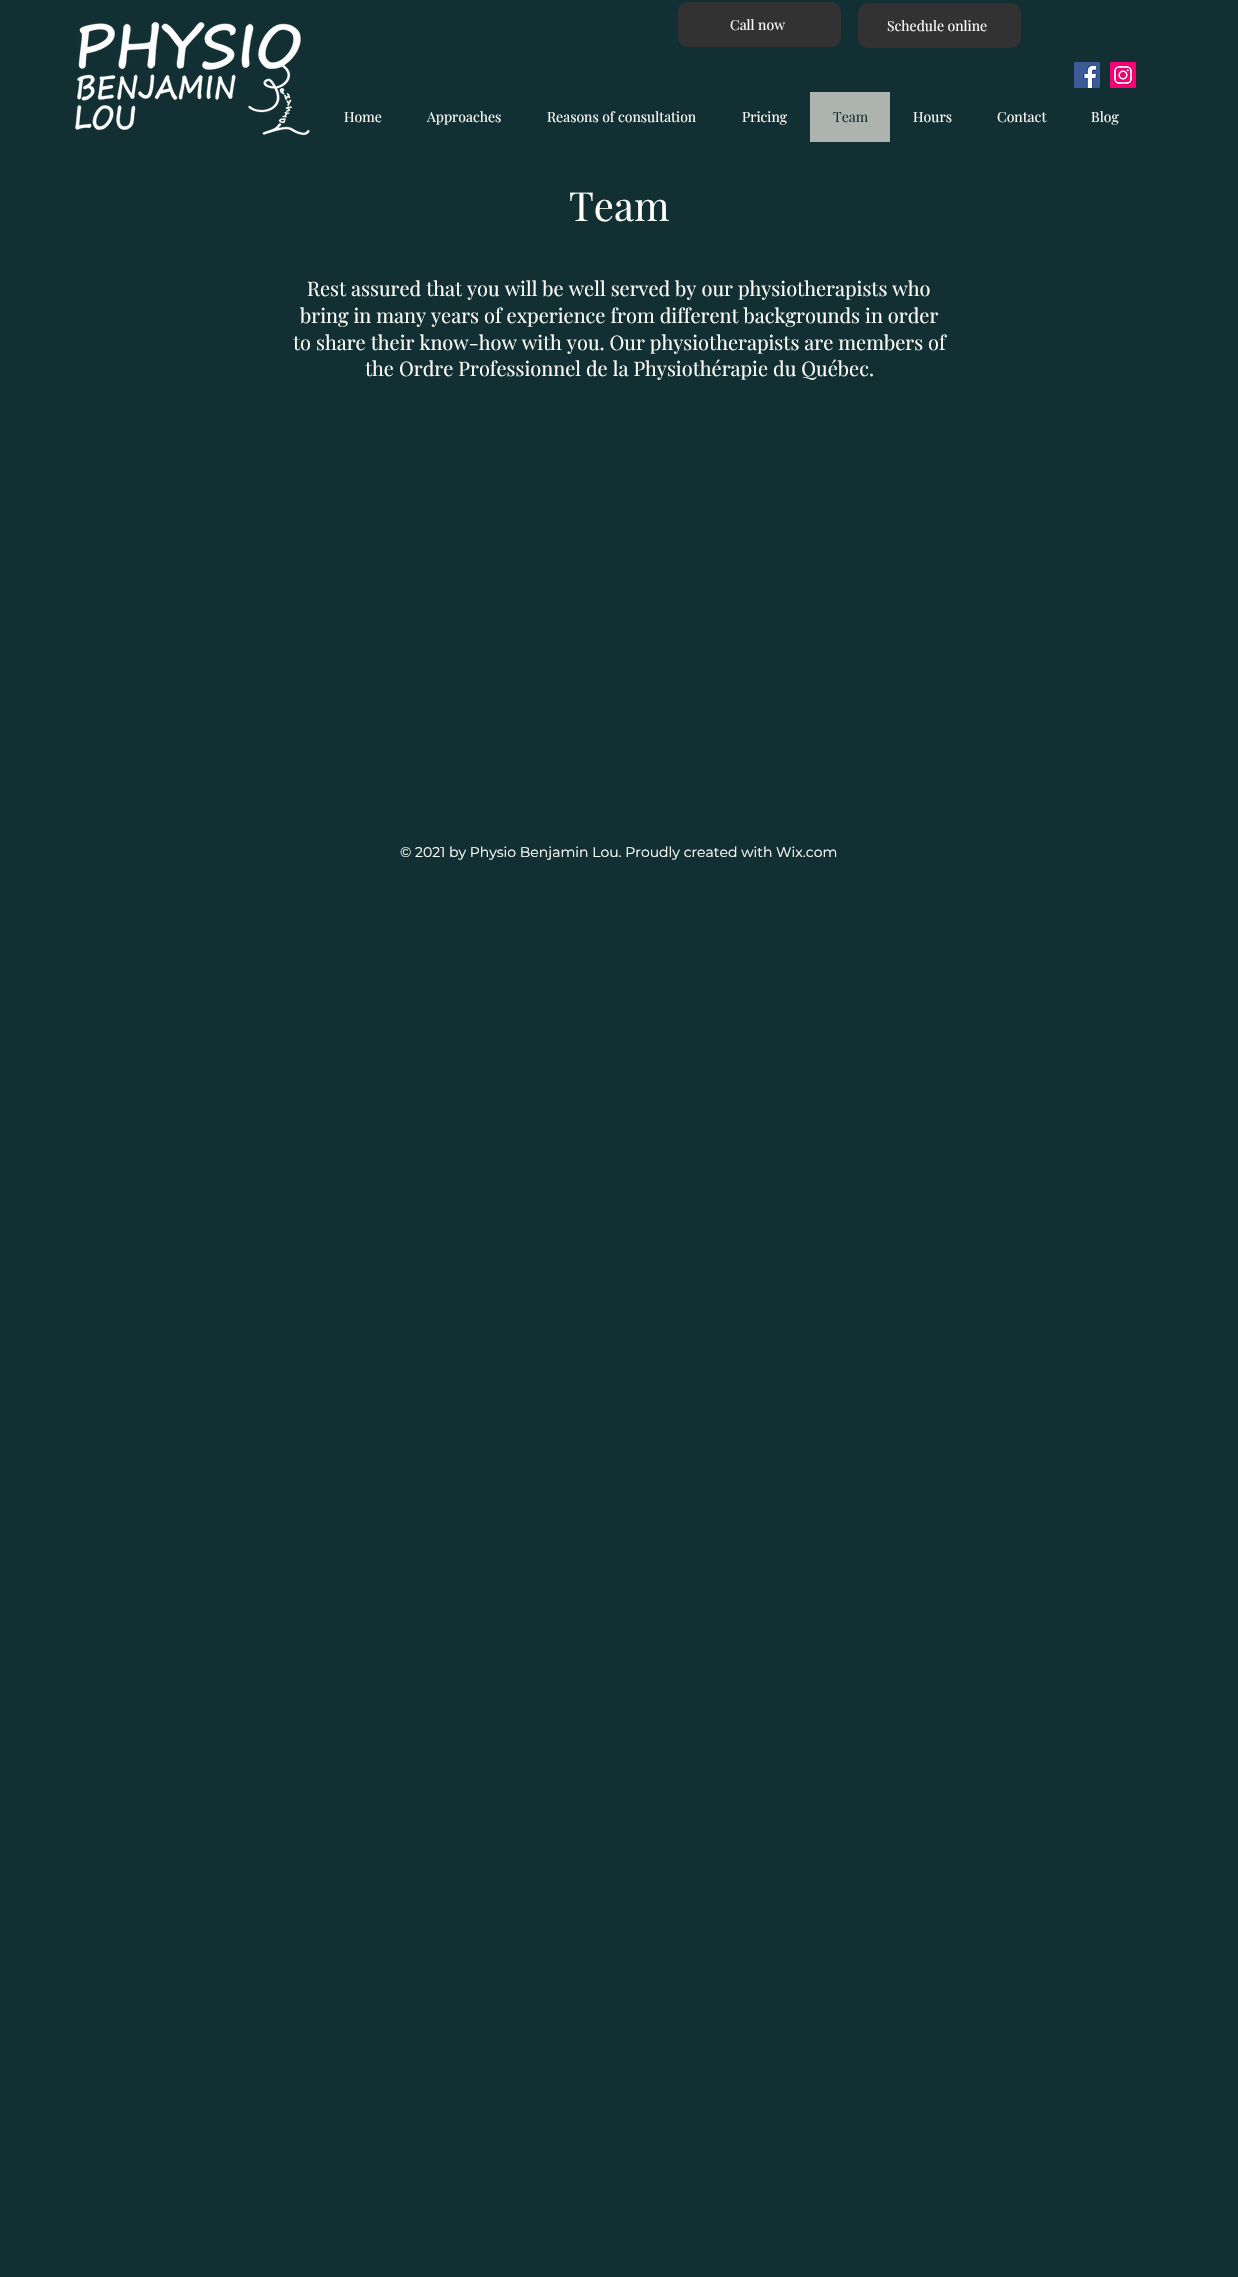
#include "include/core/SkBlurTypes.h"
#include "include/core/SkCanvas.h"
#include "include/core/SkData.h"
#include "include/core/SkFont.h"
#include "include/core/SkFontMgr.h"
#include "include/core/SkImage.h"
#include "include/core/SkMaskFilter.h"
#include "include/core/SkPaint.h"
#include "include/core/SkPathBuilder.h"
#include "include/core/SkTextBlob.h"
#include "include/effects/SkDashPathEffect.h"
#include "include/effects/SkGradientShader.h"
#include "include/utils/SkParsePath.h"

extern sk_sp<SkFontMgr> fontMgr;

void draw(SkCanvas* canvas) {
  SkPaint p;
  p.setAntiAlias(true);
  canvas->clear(SkColorSetRGB(18, 48, 51));
  canvas->drawImageRect(SkImages::DeferredFromEncodedData(SkData::MakeFromFileName("images/1.png")), SkRect::MakeLTRB(75, 21, 310, 136), SkSamplingOptions());
  p.setColor(SkColorSetRGB(50, 50, 50));
  canvas->drawRoundRect(SkRect::MakeLTRB(678, 2, 841, 47), 10, 10, p);
  canvas->drawRoundRect(SkRect::MakeLTRB(858, 3, 1021, 48), 10, 10, p);
  canvas->drawImageRect(SkImages::DeferredFromEncodedData(SkData::MakeFromFileName("images/2.png")), SkRect::MakeLTRB(1074, 62, 1100, 88), SkSamplingOptions());
  canvas->drawImageRect(SkImages::DeferredFromEncodedData(SkData::MakeFromFileName("images/3.png")), SkRect::MakeLTRB(1110, 62, 1136, 88), SkSamplingOptions());
  p.setColor(SkColorSetRGB(173, 179, 175));
  canvas->drawRect(SkRect::MakeLTRB(810, 92, 890, 142), p);
  SkFont font1(fontMgr->matchFamilyStyle("Playfair Display", SkFontStyle::Normal()), 14);
  font1.setSubpixel(true);
  p.setColor(SK_ColorWHITE);
  canvas->drawString("Call now", 730, 30, font1, p);
  canvas->drawString("Schedule online", 887, 31, font1, p);
  p.setColor(SkColorSetRGB(255, 254, 248));
  canvas->drawString("Home", 344, 122, font1, p);
  canvas->drawString("Approaches", 427, 122, font1, p);
  canvas->drawString("Reasons of consultation", 547, 122, font1, p);
  canvas->drawString("Pricing", 742, 122, font1, p);
  p.setColor(SkColorSetRGB(18, 48, 51));
  canvas->drawString("Team", 833, 122, font1, p);
  p.setColor(SkColorSetRGB(255, 254, 248));
  canvas->drawString("Hours", 913, 122, font1, p);
  canvas->drawString("Contact", 997, 122, font1, p);
  canvas->drawString("Blog", 1091, 122, font1, p);
  SkFont font2(fontMgr->matchFamilyStyle("Playfair Display", SkFontStyle::Normal()), 40);
  font2.setSubpixel(true);
  canvas->drawString("Team", 569, 221, font2, p);
  SkFont font3(fontMgr->matchFamilyStyle("Playfair Display", SkFontStyle::Normal()), 20);
  font3.setSubpixel(true);
  canvas->drawString("Rest assured that you will be well served by our physiotherapists who", 307, 296, font3, p);
  canvas->drawString("bring in many years of experience from different backgrounds in order", 300, 323, font3, p);
  canvas->drawString("to share their know-how with you. Our physiotherapists are members of", 293, 350, font3, p);
  canvas->drawString("the Ordre Professionnel de la Physiothérapie du Québec.", 365, 376, font3, p);
  SkFont font4(fontMgr->matchFamilyStyle("Montserrat", SkFontStyle::Normal()), 14);
  font4.setSubpixel(true);
  canvas->drawString("© 2021 by Physio Benjamin Lou. Proudly created with Wix.com", 400, 857, font4, p);
}
